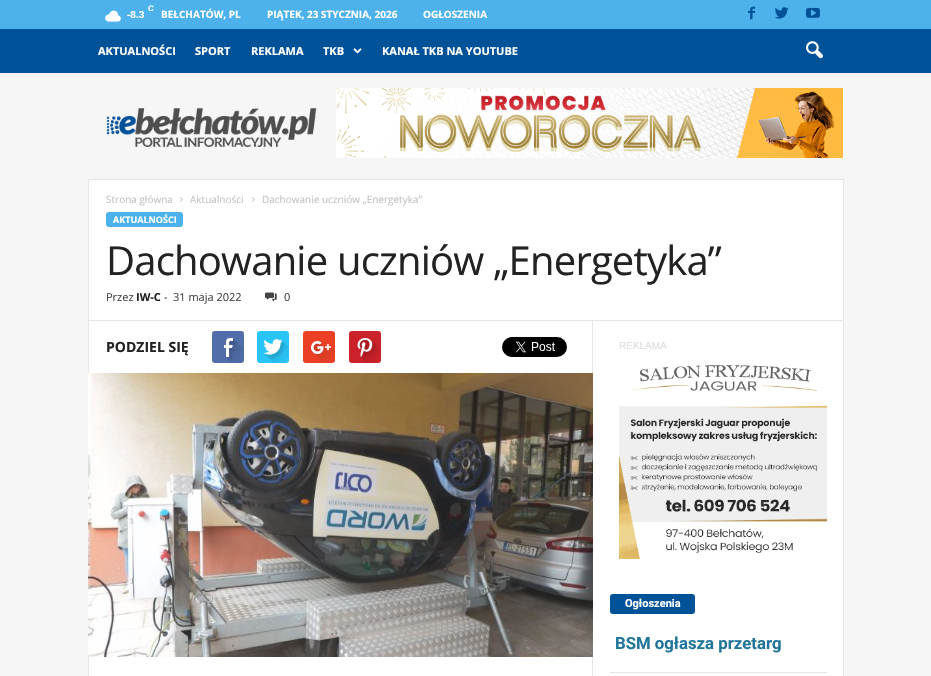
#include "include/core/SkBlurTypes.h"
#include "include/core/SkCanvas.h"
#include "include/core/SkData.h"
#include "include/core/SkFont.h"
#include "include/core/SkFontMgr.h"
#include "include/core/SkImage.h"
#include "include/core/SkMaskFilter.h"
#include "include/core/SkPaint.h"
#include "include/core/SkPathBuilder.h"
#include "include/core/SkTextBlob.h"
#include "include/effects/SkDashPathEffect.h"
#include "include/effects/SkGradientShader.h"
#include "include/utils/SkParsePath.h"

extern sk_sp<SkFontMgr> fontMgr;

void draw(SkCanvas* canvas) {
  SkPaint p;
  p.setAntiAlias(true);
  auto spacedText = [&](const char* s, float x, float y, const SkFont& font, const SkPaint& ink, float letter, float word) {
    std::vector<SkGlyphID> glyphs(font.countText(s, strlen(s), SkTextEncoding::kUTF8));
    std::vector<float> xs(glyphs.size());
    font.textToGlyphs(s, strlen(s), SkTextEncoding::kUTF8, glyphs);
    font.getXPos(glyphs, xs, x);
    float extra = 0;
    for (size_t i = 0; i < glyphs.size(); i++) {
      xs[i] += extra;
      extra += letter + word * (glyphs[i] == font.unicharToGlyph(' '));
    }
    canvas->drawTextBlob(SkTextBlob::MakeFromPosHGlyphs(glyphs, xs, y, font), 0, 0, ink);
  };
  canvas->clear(SkColorSetRGB(246, 246, 246));
  p.setColor(SkColorSetRGB(77, 178, 236));
  canvas->drawRect(SkRect::MakeLTRB(0, 0, 931, 29), p);
  canvas->drawImageRect(SkImages::DeferredFromEncodedData(SkData::MakeFromFileName("images/1.png")), SkRect::MakeLTRB(105, 10, 121, 22), SkSamplingOptions());
  canvas->drawImageRect(SkImages::DeferredFromEncodedData(SkData::MakeFromFileName("images/2.png")), SkRect::MakeLTRB(748, 6, 755, 20), SkSamplingOptions());
  canvas->drawImageRect(SkImages::DeferredFromEncodedData(SkData::MakeFromFileName("images/3.png")), SkRect::MakeLTRB(774, 7, 789, 19), SkSamplingOptions());
  canvas->drawImageRect(SkImages::DeferredFromEncodedData(SkData::MakeFromFileName("images/4.png")), SkRect::MakeLTRB(806, 7, 820, 18), SkSamplingOptions());
  p.setColor(SkColorSetRGB(0, 82, 152));
  canvas->drawRect(SkRect::MakeLTRB(0, 29, 931, 73), p);
  canvas->drawImageRect(SkImages::DeferredFromEncodedData(SkData::MakeFromFileName("images/5.png")), SkRect::MakeLTRB(353, 48, 362, 54), SkSamplingOptions());
  canvas->drawImageRect(SkImages::DeferredFromEncodedData(SkData::MakeFromFileName("images/6.png")), SkRect::MakeLTRB(806, 41, 823, 59), SkSamplingOptions());
  p.setColor(SkColorSetRGB(230, 230, 230));
  canvas->drawRect(SkRect::MakeLTRB(88, 179, 844, 180), p);
  canvas->drawImageRect(SkImages::DeferredFromEncodedData(SkData::MakeFromFileName("images/7.png")), SkRect::MakeLTRB(106, 108, 317, 147), SkSamplingOptions());
  canvas->drawImageRect(SkImages::DeferredFromEncodedData(SkData::MakeFromFileName("images/8.png")), SkRect::MakeLTRB(336, 88, 843, 158), SkSamplingOptions());
  p.setColor(SK_ColorWHITE);
  canvas->drawRect(SkRect::MakeLTRB(89, 180, 843, 676), p);
  p.setColor(SkColorSetRGB(230, 230, 230));
  canvas->drawRect(SkRect::MakeLTRB(88, 180, 89, 676), p);
  canvas->drawImageRect(SkImages::DeferredFromEncodedData(SkData::MakeFromFileName("images/9.png")), SkRect::MakeLTRB(180, 197, 183, 202), SkSamplingOptions());
  canvas->drawImageRect(SkImages::DeferredFromEncodedData(SkData::MakeFromFileName("images/9.png")), SkRect::MakeLTRB(252, 197, 255, 202), SkSamplingOptions());
  p.setColor(SkColorSetRGB(77, 178, 236));
  canvas->drawRoundRect(SkRect::MakeLTRB(106, 212, 183, 227), 3, 3, p);
  canvas->drawImageRect(SkImages::DeferredFromEncodedData(SkData::MakeFromFileName("images/10.png")), SkRect::MakeLTRB(265, 292, 277, 302), SkSamplingOptions());
  p.setColor(SkColorSetRGB(230, 230, 230));
  canvas->drawRect(SkRect::MakeLTRB(592, 320, 593, 676), p);
  canvas->drawRect(SkRect::MakeLTRB(843, 180, 844, 676), p);
  canvas->drawRect(SkRect::MakeLTRB(89, 320, 844, 321), p);
  p.setColor(SkColorSetRGB(81, 110, 171));
  canvas->drawRoundRect(SkRect::MakeLTRB(212, 331, 244, 363), 3, 3, p);
  canvas->drawImageRect(SkImages::DeferredFromEncodedData(SkData::MakeFromFileName("images/11.png")), SkRect::MakeLTRB(224, 338, 244, 363), SkSamplingOptions());
  p.setColor(SkColorSetRGB(41, 197, 246));
  canvas->drawRoundRect(SkRect::MakeLTRB(257, 331, 289, 363), 3, 3, p);
  canvas->drawImageRect(SkImages::DeferredFromEncodedData(SkData::MakeFromFileName("images/12.png")), SkRect::MakeLTRB(263, 339, 289, 363), SkSamplingOptions());
  p.setColor(SkColorSetRGB(235, 64, 38));
  canvas->drawRoundRect(SkRect::MakeLTRB(303, 331, 335, 363), 3, 3, p);
  canvas->drawImageRect(SkImages::DeferredFromEncodedData(SkData::MakeFromFileName("images/13.png")), SkRect::MakeLTRB(311, 341, 335, 362), SkSamplingOptions());
  p.setColor(SkColorSetRGB(202, 33, 42));
  canvas->drawRoundRect(SkRect::MakeLTRB(349, 331, 381, 363), 3, 3, p);
  canvas->drawImageRect(SkImages::DeferredFromEncodedData(SkData::MakeFromFileName("images/14.png")), SkRect::MakeLTRB(357, 338, 381, 363), SkSamplingOptions());
  canvas->drawImageRect(SkImages::DeferredFromEncodedData(SkData::MakeFromFileName("images/15.png")), SkRect::MakeLTRB(502, 337, 567, 357), SkSamplingOptions());
  canvas->drawImageRect(SkImages::DeferredFromEncodedData(SkData::MakeFromFileName("images/16.png")), SkRect::MakeLTRB(88, 373, 593, 657), SkSamplingOptions());
  canvas->drawImageRect(SkImages::DeferredFromEncodedData(SkData::MakeFromFileName("images/17.png")), SkRect::MakeLTRB(619, 365, 827, 559), SkSamplingOptions());
  p.setColor(SkColorSetRGB(0, 82, 152));
  canvas->drawRoundRect(SkRect::MakeLTRB(610, 594, 695, 614), 3, 3, p);
  p.setColor(SkColorSetRGB(229, 229, 229));
  canvas->drawRect(SkRect::MakeLTRB(610, 672, 827, 673), p);
  SkFont font1(fontMgr->matchFamilyStyle("Liberation Sans", SkFontStyle::Bold()), 8);
  font1.setSubpixel(true);
  p.setColor(SK_ColorWHITE);
  canvas->drawString("C", 148, 11, font1, p);
  SkFont font2(fontMgr->matchFamilyStyle("Liberation Sans", SkFontStyle::Bold()), 10);
  font2.setSubpixel(true);
  canvas->drawString("-8.3", 127, 18, font2, p);
  SkFont font3(fontMgr->matchFamilyStyle("Open Sans", SkFontStyle::Bold()), 10);
  font3.setSubpixel(true);
  canvas->drawString("BEŁCHATÓW, PL", 161, 18, font3, p);
  canvas->drawString("PIĄTEK, 23 STYCZNIA, 2026", 267, 18, font3, p);
  canvas->drawString("OGŁOSZENIA", 423, 18, font3, p);
  SkFont font4(fontMgr->matchFamilyStyle("Open Sans", SkFontStyle::Bold()), 11);
  font4.setSubpixel(true);
  canvas->drawString("AKTUALNOŚCI", 98, 55, font4, p);
  canvas->drawString("SPORT", 195, 55, font4, p);
  canvas->drawString("REKLAMA", 251, 55, font4, p);
  canvas->drawString("TKB", 323, 55, font4, p);
  canvas->drawString("KANAŁ TKB NA YOUTUBE", 382, 55, font4, p);
  SkFont font5(fontMgr->matchFamilyStyle("Open Sans", SkFontStyle::Normal()), 10);
  font5.setSubpixel(true);
  p.setColor(SkColorSetRGB(195, 195, 195));
  canvas->drawString("Strona główna", 106, 203, font5, p);
  canvas->drawString("Aktualności", 190, 203, font5, p);
  canvas->drawString("Dachowanie uczniów „Energetyka”", 262, 203, font5, p);
  SkFont font6(fontMgr->matchFamilyStyle("Open Sans", SkFontStyle::Bold()), 9);
  font6.setSubpixel(true);
  p.setColor(SK_ColorWHITE);
  canvas->drawString("AKTUALNOŚCI", 113, 223, font6, p);
  SkFont font7(fontMgr->matchFamilyStyle("Open Sans", SkFontStyle::Normal()), 40);
  font7.setSubpixel(true);
  p.setColor(SkColorSetRGB(34, 34, 34));
  spacedText("Dachowanie uczniów „Energetyka”", 106, 275, font7, p, -0.8f, 0);
  SkFont font8(fontMgr->matchFamilyStyle("Open Sans", SkFontStyle::Normal()), 11);
  font8.setSubpixel(true);
  p.setColor(SkColorSetRGB(68, 68, 68));
  canvas->drawString("Przez", 106, 301, font8, p);
  p.setColor(SkColorSetRGB(34, 34, 34));
  canvas->drawString("IW-C", 136, 301, font4, p);
  p.setColor(SkColorSetRGB(68, 68, 68));
  canvas->drawString("-", 164, 301, font8, p);
  canvas->drawString("31 maja 2022", 173, 301, font8, p);
  canvas->drawString("0", 284, 301, font8, p);
  SkFont font9(fontMgr->matchFamilyStyle("Open Sans", SkFontStyle::Bold()), 14);
  font9.setSubpixel(true);
  p.setColor(SkColorSetRGB(34, 34, 34));
  canvas->drawString("PODZIEL SIĘ", 106, 352, font9, p);
  SkFont font10(fontMgr->matchFamilyStyle("Liberation Sans", SkFontStyle::Normal()), 10);
  font10.setSubpixel(true);
  p.setColor(SkColorSetRGB(221, 221, 221));
  canvas->drawString("REKLAMA", 619, 349, font10, p);
  SkFont font11(fontMgr->matchFamilyStyle("Roboto", SkFontStyle::Bold()), 11);
  font11.setSubpixel(true);
  p.setColor(SK_ColorWHITE);
  canvas->drawString("Ogłoszenia", 625, 607, font11, p);
  SkFont font12(fontMgr->matchFamilyStyle("Roboto", SkFontStyle::Bold()), 16.75f);
  font12.setSubpixel(true);
  p.setColor(SkColorSetRGB(33, 117, 155));
  canvas->drawString("BSM ogłasza przetarg", 615, 649, font12, p);
}
